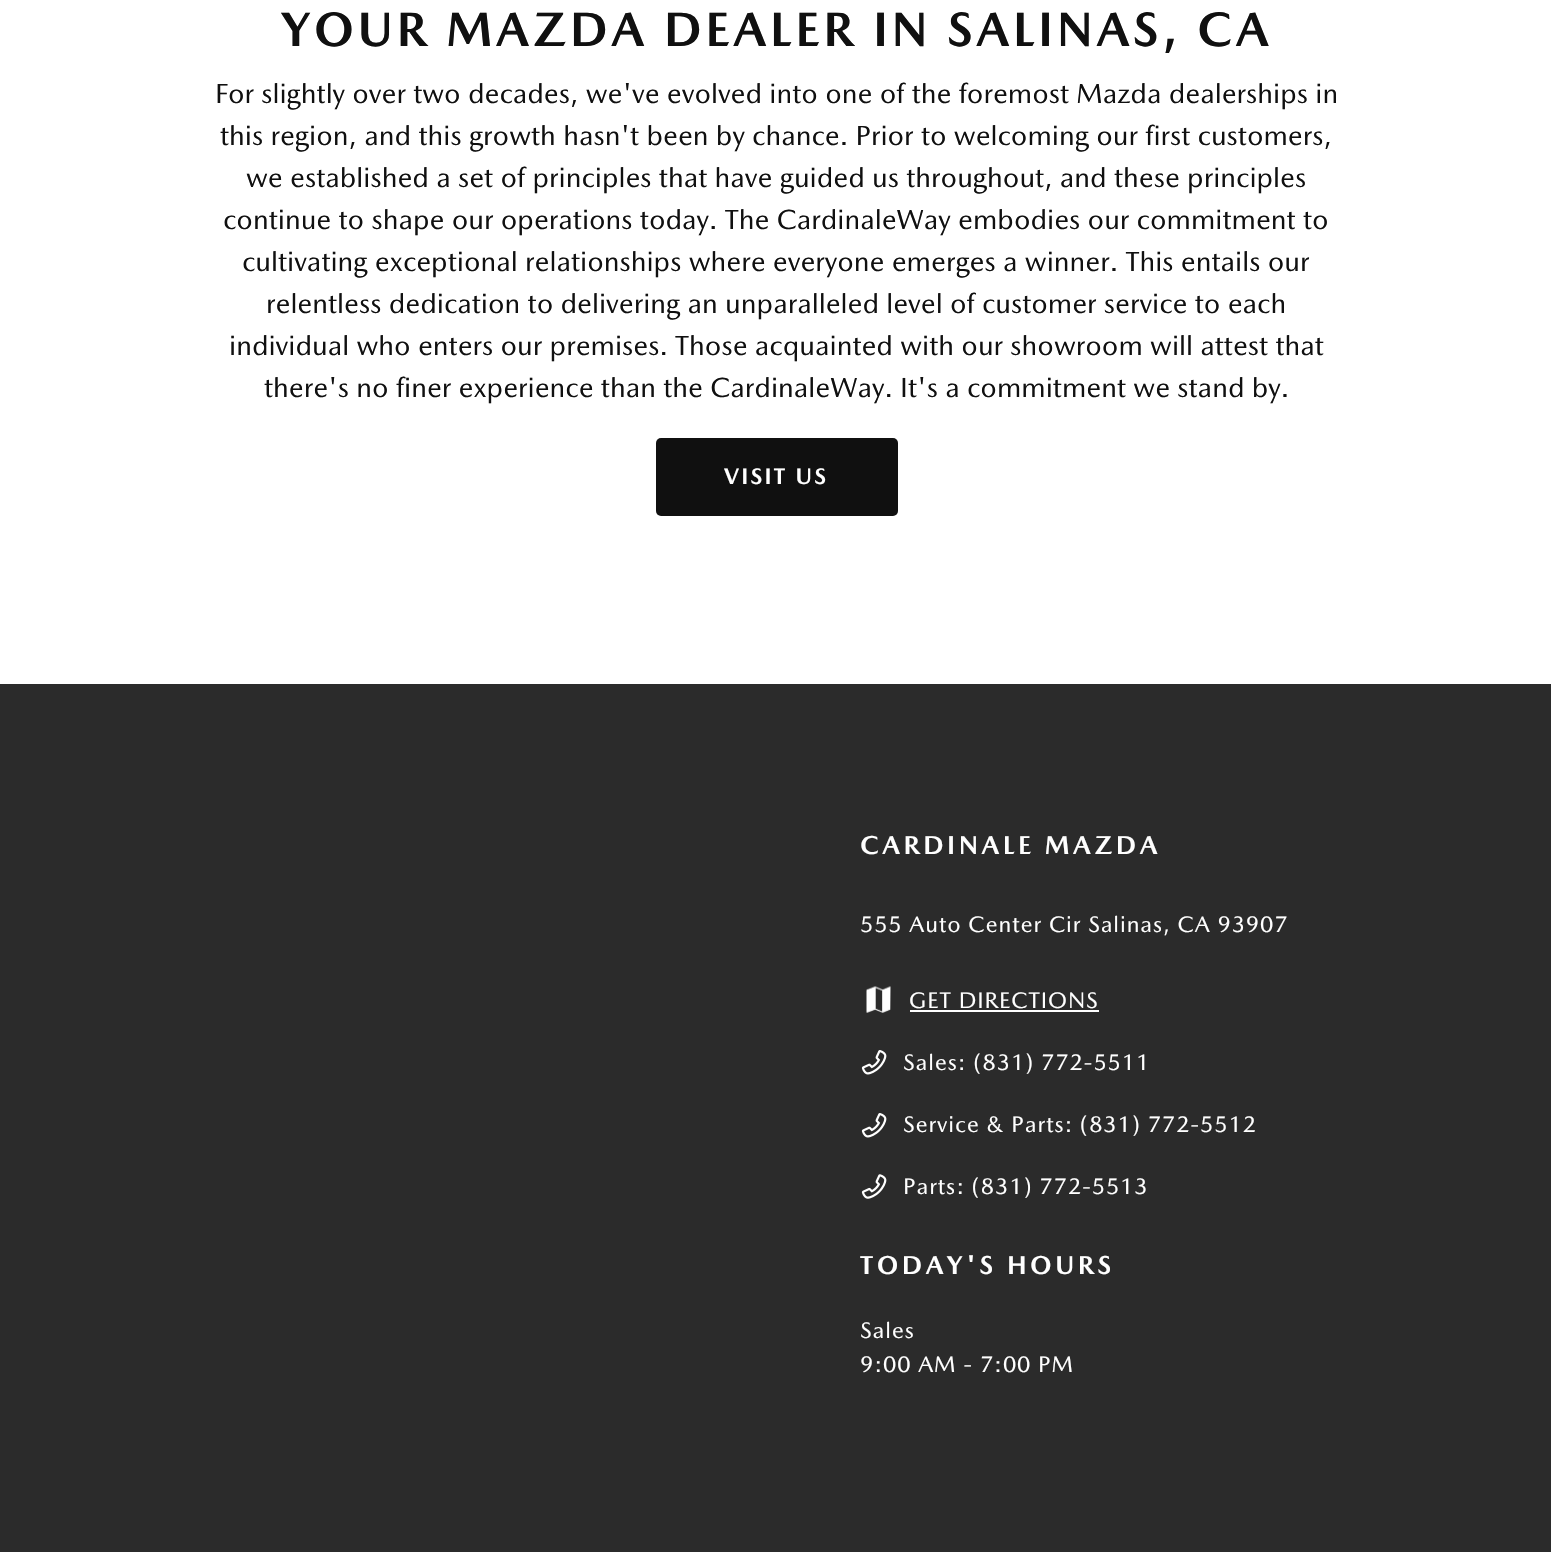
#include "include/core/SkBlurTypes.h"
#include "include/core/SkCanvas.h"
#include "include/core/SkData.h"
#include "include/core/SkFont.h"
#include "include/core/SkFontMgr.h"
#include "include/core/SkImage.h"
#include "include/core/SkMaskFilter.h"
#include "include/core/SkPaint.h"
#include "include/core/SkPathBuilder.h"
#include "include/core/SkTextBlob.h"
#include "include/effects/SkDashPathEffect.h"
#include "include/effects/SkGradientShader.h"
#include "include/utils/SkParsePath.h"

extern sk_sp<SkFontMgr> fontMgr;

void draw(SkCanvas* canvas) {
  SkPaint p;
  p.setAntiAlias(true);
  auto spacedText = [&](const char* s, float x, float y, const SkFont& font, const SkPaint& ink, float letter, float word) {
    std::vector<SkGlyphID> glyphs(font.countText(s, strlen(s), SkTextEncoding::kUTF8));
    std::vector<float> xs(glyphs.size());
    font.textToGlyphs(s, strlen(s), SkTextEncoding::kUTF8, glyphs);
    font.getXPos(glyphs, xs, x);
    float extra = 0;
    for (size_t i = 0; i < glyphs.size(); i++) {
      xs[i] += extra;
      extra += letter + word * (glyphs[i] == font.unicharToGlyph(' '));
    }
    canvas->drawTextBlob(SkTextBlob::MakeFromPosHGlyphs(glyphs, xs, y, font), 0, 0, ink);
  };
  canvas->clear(SK_ColorWHITE);
  p.setColor(SkColorSetRGB(16, 16, 16));
  canvas->drawRoundRect(SkRect::MakeLTRB(656, 438, 898, 516), 5, 5, p);
  p.setColor(SkColorSetRGB(43, 43, 43));
  canvas->drawRect(SkRect::MakeLTRB(0, 684, 1551, 1552), p);
  canvas->drawImageRect(SkImages::DeferredFromEncodedData(SkData::MakeFromFileName("images/1.png")), SkRect::MakeLTRB(866, 986, 891, 1013), SkSamplingOptions());
  p.setColor(SK_ColorWHITE);
  canvas->drawRect(SkRect::MakeLTRB(910, 1010, 1099, 1012), p);
  canvas->drawImageRect(SkImages::DeferredFromEncodedData(SkData::MakeFromFileName("images/2.png")), SkRect::MakeLTRB(861, 1050, 887, 1075), SkSamplingOptions());
  canvas->drawImageRect(SkImages::DeferredFromEncodedData(SkData::MakeFromFileName("images/2.png")), SkRect::MakeLTRB(861, 1113, 887, 1138), SkSamplingOptions());
  canvas->drawImageRect(SkImages::DeferredFromEncodedData(SkData::MakeFromFileName("images/3.png")), SkRect::MakeLTRB(861, 1174, 887, 1199), SkSamplingOptions());
  SkFont font1(fontMgr->matchFamilyStyle("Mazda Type", SkFontStyle::Bold()), 49);
  font1.setSubpixel(true);
  p.setColor(SkColorSetRGB(16, 16, 16));
  spacedText("YOUR MAZDA DEALER IN SALINAS, CA", 281, 46, font1, p, 3.5f, 0);
  SkFont font2(fontMgr->matchFamilyStyle("Mazda Type", SkFontStyle::Normal()), 28);
  font2.setSubpixel(true);
  canvas->drawString("For slightly over two decades, we've evolved into one of the foremost Mazda dealerships in", 215, 103, font2, p);
  canvas->drawString("this region, and this growth hasn't been by chance. Prior to welcoming our first customers,", 220, 145, font2, p);
  canvas->drawString("we established a set of principles that have guided us throughout, and these principles", 246, 187, font2, p);
  canvas->drawString("continue to shape our operations today. The CardinaleWay embodies our commitment to", 223, 229, font2, p);
  canvas->drawString("cultivating exceptional relationships where everyone emerges a winner. This entails our", 242, 271, font2, p);
  canvas->drawString("relentless dedication to delivering an unparalleled level of customer service to each", 266, 313, font2, p);
  canvas->drawString("individual who enters our premises. Those acquainted with our showroom will attest that", 229, 355, font2, p);
  canvas->drawString("there's no finer experience than the CardinaleWay. It's a commitment we stand by.", 264, 397, font2, p);
  SkFont font3(fontMgr->matchFamilyStyle("Mazda Type", SkFontStyle::Bold()), 22.75f);
  font3.setSubpixel(true);
  p.setColor(SK_ColorWHITE);
  spacedText("VISIT US", 724, 484, font3, p, 2.25f, 0);
  SkFont font4(fontMgr->matchFamilyStyle("Mazda Type", SkFontStyle::Bold()), 26.25f);
  font4.setSubpixel(true);
  spacedText("CARDINALE MAZDA", 860, 854, font4, p, 3.5f, 0);
  SkFont font5(fontMgr->matchFamilyStyle("Mazda Type", SkFontStyle::Normal()), 22.75f);
  font5.setSubpixel(true);
  spacedText("555 Auto Center Cir Salinas, CA 93907", 860, 932, font5, p, 0.9f, 0);
  spacedText("GET DIRECTIONS", 909, 1008, font5, p, 0.9f, 0);
  spacedText("Sales: (831) 772-5511", 903, 1070, font5, p, 0.9f, 0);
  spacedText("Service & Parts: (831) 772-5512", 903, 1132, font5, p, 0.9f, 0);
  spacedText("Parts: (831) 772-5513", 903, 1194, font5, p, 0.9f, 0);
  spacedText("TODAY'S HOURS", 860, 1274, font4, p, 3.5f, 0);
  spacedText("Sales", 860, 1338, font5, p, 0.9f, 0);
  spacedText("9:00 AM - 7:00 PM", 860, 1372, font5, p, 0.9f, 0);
}
